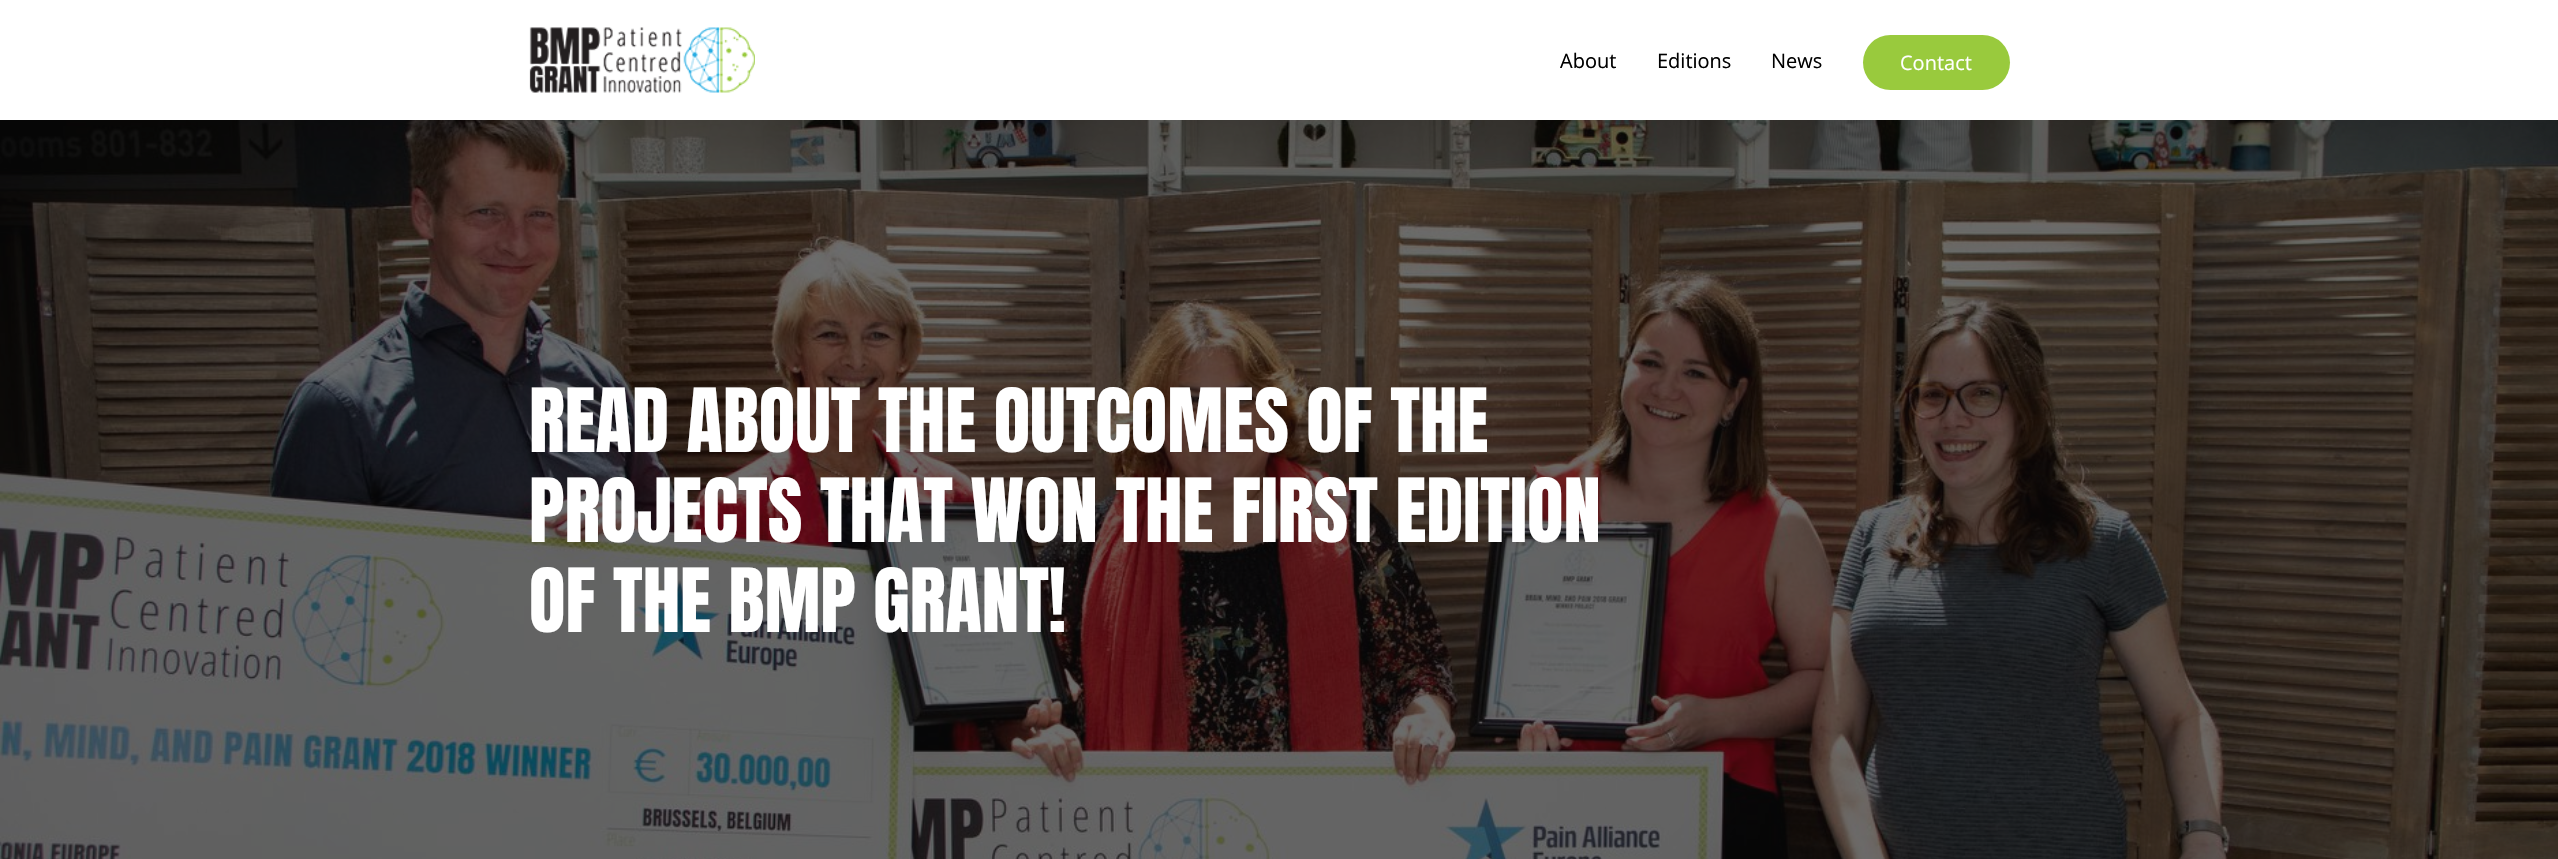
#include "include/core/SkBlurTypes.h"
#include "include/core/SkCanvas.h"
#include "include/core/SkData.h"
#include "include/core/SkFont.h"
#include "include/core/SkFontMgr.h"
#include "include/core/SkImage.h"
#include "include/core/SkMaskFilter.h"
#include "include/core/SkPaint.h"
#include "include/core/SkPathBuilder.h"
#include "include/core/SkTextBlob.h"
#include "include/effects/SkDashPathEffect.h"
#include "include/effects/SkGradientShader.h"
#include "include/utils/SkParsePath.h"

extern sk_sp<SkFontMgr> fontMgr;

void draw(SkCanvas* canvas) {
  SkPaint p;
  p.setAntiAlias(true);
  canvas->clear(SK_ColorWHITE);
  canvas->drawImageRect(SkImages::DeferredFromEncodedData(SkData::MakeFromFileName("images/1.png")), SkRect::MakeLTRB(529, 27, 755, 93), SkSamplingOptions());
  p.setColor(SkColorSetRGB(153, 202, 61));
  canvas->drawRoundRect(SkRect::MakeLTRB(1863, 35, 2010, 90), 27.5f, 27.5f, p);
  canvas->drawImageRect(SkImages::DeferredFromEncodedData(SkData::MakeFromFileName("images/2.png")), SkRect::MakeLTRB(0, 120, 2558, 859), SkSamplingOptions());
  SkFont font1(fontMgr->matchFamilyStyle("Open Sans", SkFontStyle::Normal()), 20);
  font1.setSubpixel(true);
  p.setColor(SK_ColorBLACK);
  canvas->drawString("About", 1560, 68, font1, p);
  canvas->drawString("Editions", 1657, 68, font1, p);
  canvas->drawString("News", 1771, 68, font1, p);
  p.setColor(SK_ColorWHITE);
  canvas->drawString("Contact", 1900, 70, font1, p);
  SkFont font2(fontMgr->matchFamilyStyle("Anton", SkFontStyle::Normal()), 75);
  font2.setSubpixel(true);
  canvas->drawString("READ ABOUT THE OUTCOMES OF THE", 529, 452, font2, p);
  canvas->drawString("PROJECTS THAT WON THE FIRST EDITION", 529, 542, font2, p);
  canvas->drawString("OF THE BMP GRANT!", 529, 632, font2, p);
}
